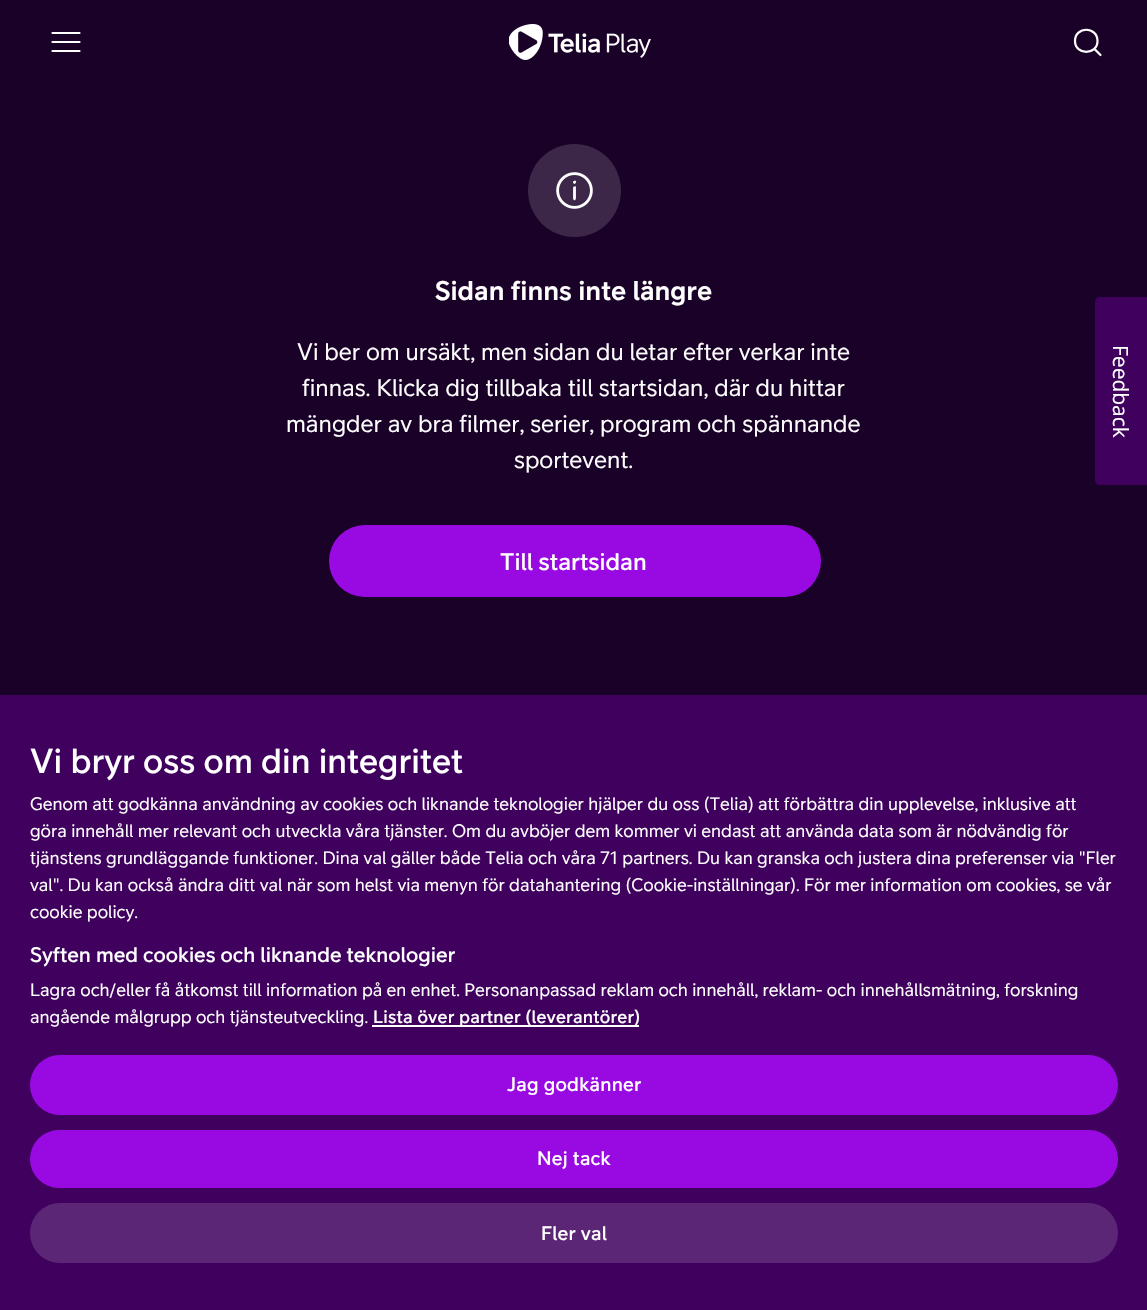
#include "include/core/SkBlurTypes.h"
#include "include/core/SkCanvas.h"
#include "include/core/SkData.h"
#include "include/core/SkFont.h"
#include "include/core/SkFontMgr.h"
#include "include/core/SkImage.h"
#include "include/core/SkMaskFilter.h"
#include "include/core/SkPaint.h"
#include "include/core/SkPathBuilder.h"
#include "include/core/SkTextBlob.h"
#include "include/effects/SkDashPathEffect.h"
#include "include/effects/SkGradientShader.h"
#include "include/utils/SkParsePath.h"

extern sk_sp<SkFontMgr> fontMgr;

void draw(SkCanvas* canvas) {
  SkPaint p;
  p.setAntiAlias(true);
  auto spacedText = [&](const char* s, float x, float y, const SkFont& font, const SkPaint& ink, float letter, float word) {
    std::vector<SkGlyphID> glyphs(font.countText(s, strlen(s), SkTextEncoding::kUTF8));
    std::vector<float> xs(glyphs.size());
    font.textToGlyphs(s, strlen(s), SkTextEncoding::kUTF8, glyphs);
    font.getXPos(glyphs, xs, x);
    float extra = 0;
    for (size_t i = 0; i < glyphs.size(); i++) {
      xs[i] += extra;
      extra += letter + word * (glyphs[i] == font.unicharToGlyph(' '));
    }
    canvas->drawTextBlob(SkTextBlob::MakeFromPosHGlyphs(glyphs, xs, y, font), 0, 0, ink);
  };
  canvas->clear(SkColorSetRGB(26, 1, 40));
  p.setStyle(SkPaint::kStroke_Style);
  p.setStrokeWidth(2.2f);
  p.setStrokeCap(SkPaint::kRound_Cap);
  p.setColor(SK_ColorWHITE);
  canvas->drawPath(SkPathBuilder().moveTo(52.5f, 33).lineTo(79.5f, 33).moveTo(52.5f, 42).lineTo(79.5f, 42).moveTo(52.5f, 51).lineTo(79.5f, 51).detach(), p);
  canvas->drawImageRect(SkImages::DeferredFromEncodedData(SkData::MakeFromFileName("images/1.png")), SkRect::MakeLTRB(509, 24, 651, 60), SkSamplingOptions());
  canvas->drawPath(SkPathBuilder().moveTo(1100.5f, 55).lineTo(1094.5f, 49).moveTo(1097.5f, 41).cubicTo(1097.5f, 55.5f, 1075, 55.5f, 1075, 41).cubicTo(1075, 26, 1097.5f, 26, 1097.5f, 41).close().detach(), p);
  p.setStyle(SkPaint::kFill_Style);
  p.setColor(SkColorSetRGB(60, 39, 72));
  canvas->drawCircle(574.5f, 190.5f, 46.5f, p);
  canvas->drawImageRect(SkImages::DeferredFromEncodedData(SkData::MakeFromFileName("images/2.png")), SkRect::MakeLTRB(556, 172, 593, 209), SkSamplingOptions());
  p.setColor(SkColorSetRGB(153, 10, 227));
  canvas->drawRoundRect(SkRect::MakeLTRB(329, 525, 821, 597), 36, 36, p);
  p.setColor(SkColorSetRGB(63, 0, 94));
  canvas->drawPath(SkPathBuilder().moveTo(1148, 297).lineTo(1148, 485).lineTo(1100, 485).cubicTo(1097, 485, 1095, 483, 1095, 480).lineTo(1095, 302).cubicTo(1095, 299, 1097, 297, 1100, 297).close().detach(), p);
  canvas->drawRect(SkRect::MakeLTRB(0, 695, 1147, 1310), p);
  p.setColor(SK_ColorWHITE);
  canvas->drawRect(SkRect::MakeLTRB(372, 1025, 639, 1027), p);
  p.setColor(SkColorSetRGB(153, 10, 227));
  canvas->drawRoundRect(SkRect::MakeLTRB(30, 1055, 1118, 1115), 30, 30, p);
  canvas->drawRoundRect(SkRect::MakeLTRB(30, 1130, 1118, 1188), 29, 29, p);
  p.setColor(SkColorSetRGB(92, 38, 118));
  canvas->drawRoundRect(SkRect::MakeLTRB(30, 1203, 1118, 1263), 30, 30, p);
  SkFont font1(fontMgr->matchFamilyStyle("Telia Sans", SkFontStyle::Bold()), 27);
  font1.setSubpixel(true);
  p.setColor(SK_ColorWHITE);
  canvas->drawString("Sidan finns inte längre", 435, 300, font1, p);
  SkFont font2(fontMgr->matchFamilyStyle("Telia Sans", SkFontStyle::Normal()), 24);
  font2.setSubpixel(true);
  canvas->drawString("Vi ber om ursäkt, men sidan du letar efter verkar inte", 297, 360, font2, p);
  canvas->drawString("finnas. Klicka dig tillbaka till startsidan, där du hittar", 302, 396, font2, p);
  canvas->drawString("mängder av bra filmer, serier, program och spännande", 286, 432, font2, p);
  canvas->drawString("sportevent.", 514, 468, font2, p);
  SkFont font3(fontMgr->matchFamilyStyle("Telia Sans", SkFontStyle(500, SkFontStyle::kNormal_Width, SkFontStyle::kUpright_Slant)), 24);
  font3.setSubpixel(true);
  canvas->drawString("Till startsidan", 500, 570, font3, p);
  SkFont font4(fontMgr->matchFamilyStyle("Open Sans", SkFontStyle::Normal()), 21);
  font4.setSubpixel(true);
  canvas->save();
  canvas->rotate(90, 1113, 345);
  canvas->drawString("Feedback", 1113, 345, font4, p);
  canvas->restore();
  SkFont font5(fontMgr->matchFamilyStyle("Telia Sans", SkFontStyle(500, SkFontStyle::kNormal_Width, SkFontStyle::kUpright_Slant)), 34.5f);
  font5.setSubpixel(true);
  canvas->drawString("Vi bryr oss om din integritet", 30, 773, font5, p);
  SkFont font6(fontMgr->matchFamilyStyle("Telia Sans", SkFontStyle::Normal()), 18);
  font6.setSubpixel(true);
  canvas->drawString("Genom att godkänna användning av cookies och liknande teknologier hjälper du oss (Telia) att förbättra din upplevelse, inklusive att", 30, 810, font6, p);
  canvas->drawString("göra innehåll mer relevant och utveckla våra tjänster. Om du avböjer dem kommer vi endast att använda data som är nödvändig för", 30, 837, font6, p);
  canvas->drawString("tjänstens grundläggande funktioner. Dina val gäller både Telia och våra 71 partners. Du kan granska och justera dina preferenser via \"Fler", 30, 864, font6, p);
  canvas->drawString("val\". Du kan också ändra ditt val när som helst via menyn för datahantering (Cookie-inställningar). För mer information om cookies, se vår", 30, 891, font6, p);
  canvas->drawString("cookie policy.", 30, 918, font6, p);
  SkFont font7(fontMgr->matchFamilyStyle("Telia Sans", SkFontStyle(500, SkFontStyle::kNormal_Width, SkFontStyle::kUpright_Slant)), 21);
  font7.setSubpixel(true);
  canvas->drawString("Syften med cookies och liknande teknologier", 30, 962, font7, p);
  canvas->drawString("Lagra och/eller få åtkomst till information på en enhet. Personanpassad reklam och innehåll, reklam- och innehållsmätning, forskning", 30, 996, font6, p);
  canvas->drawString("angående målgrupp och tjänsteutveckling.", 30, 1023, font6, p);
  SkFont font8(fontMgr->matchFamilyStyle("Telia Sans", SkFontStyle(500, SkFontStyle::kNormal_Width, SkFontStyle::kUpright_Slant)), 18);
  font8.setSubpixel(true);
  spacedText("Lista över partner (leverantörer)", 373, 1023, font8, p, 0.2f, 0);
  SkFont font9(fontMgr->matchFamilyStyle("Telia Sans", SkFontStyle(500, SkFontStyle::kNormal_Width, SkFontStyle::kUpright_Slant)), 19.5f);
  font9.setSubpixel(true);
  spacedText("Jag godkänner", 507, 1091, font9, p, 0.25f, 0);
  spacedText("Nej tack", 537, 1165, font9, p, 0.25f, 0);
  spacedText("Fler val", 541, 1240, font9, p, 0.25f, 0);
}
